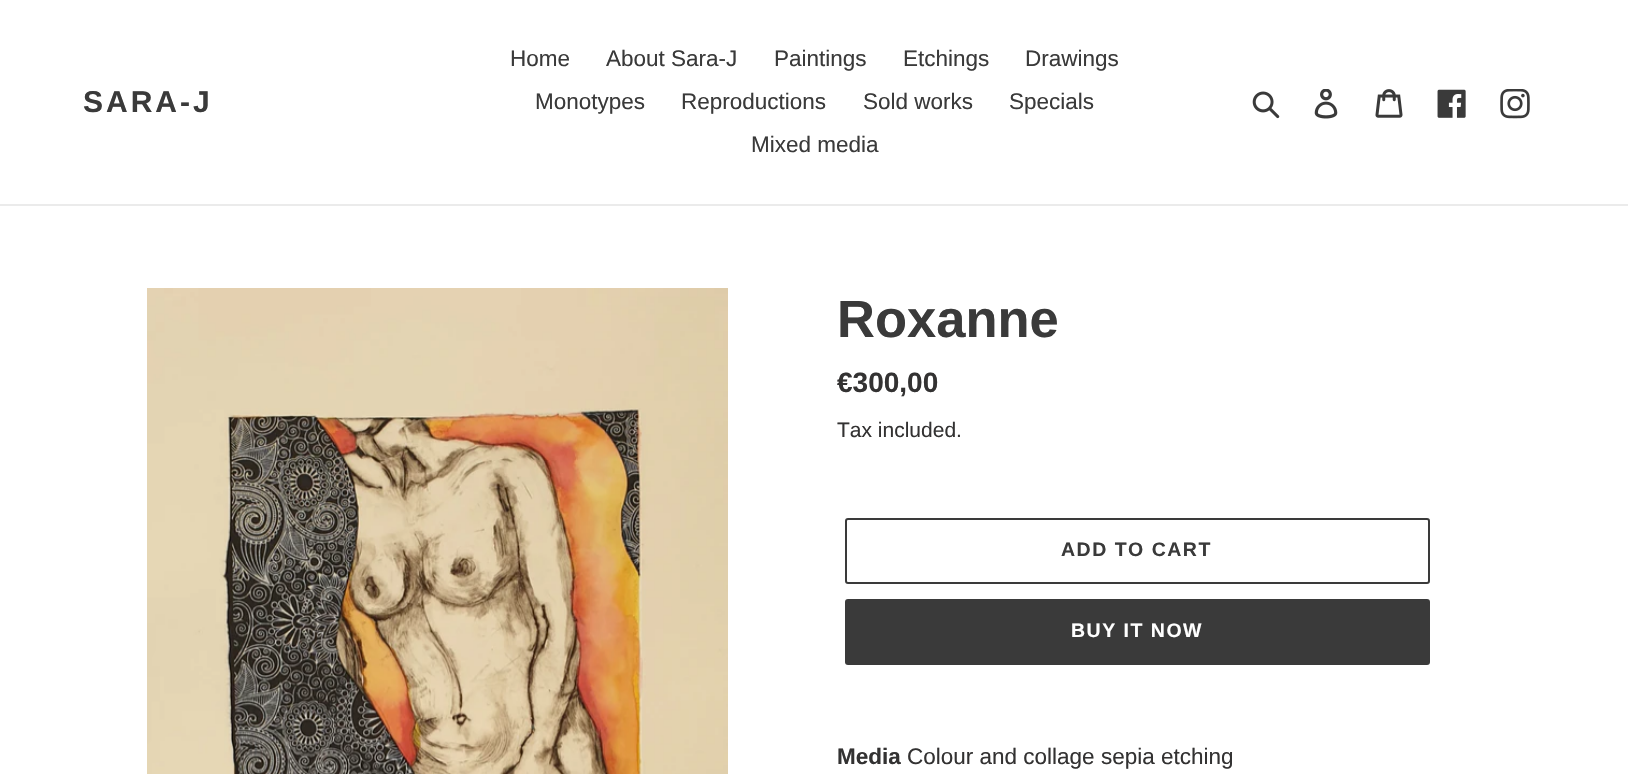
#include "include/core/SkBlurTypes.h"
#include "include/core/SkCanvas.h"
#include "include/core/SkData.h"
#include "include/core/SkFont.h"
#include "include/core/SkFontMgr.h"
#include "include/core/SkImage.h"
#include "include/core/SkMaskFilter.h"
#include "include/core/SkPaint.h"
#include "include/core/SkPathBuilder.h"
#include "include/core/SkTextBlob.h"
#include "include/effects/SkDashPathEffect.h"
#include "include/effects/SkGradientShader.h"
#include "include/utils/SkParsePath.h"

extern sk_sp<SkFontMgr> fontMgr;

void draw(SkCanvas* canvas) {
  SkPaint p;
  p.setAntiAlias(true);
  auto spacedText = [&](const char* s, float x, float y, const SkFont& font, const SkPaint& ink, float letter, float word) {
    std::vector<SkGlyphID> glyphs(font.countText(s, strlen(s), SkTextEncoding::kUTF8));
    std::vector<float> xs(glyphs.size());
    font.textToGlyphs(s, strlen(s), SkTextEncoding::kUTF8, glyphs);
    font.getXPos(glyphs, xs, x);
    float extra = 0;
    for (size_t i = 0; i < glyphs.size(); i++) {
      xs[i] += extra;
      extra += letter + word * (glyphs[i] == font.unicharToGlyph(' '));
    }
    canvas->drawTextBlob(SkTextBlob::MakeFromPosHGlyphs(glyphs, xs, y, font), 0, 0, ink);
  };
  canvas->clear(SK_ColorWHITE);
  p.setColor(SkColorSetRGB(235, 235, 235));
  canvas->drawRect(SkRect::MakeLTRB(0, 204, 1628, 206), p);
  canvas->drawImageRect(SkImages::DeferredFromEncodedData(SkData::MakeFromFileName("images/1.png")), SkRect::MakeLTRB(1252, 91, 1280, 119), SkSamplingOptions());
  canvas->drawImageRect(SkImages::DeferredFromEncodedData(SkData::MakeFromFileName("images/2.png")), SkRect::MakeLTRB(1314, 89, 1338, 119), SkSamplingOptions());
  canvas->drawImageRect(SkImages::DeferredFromEncodedData(SkData::MakeFromFileName("images/3.png")), SkRect::MakeLTRB(1375, 89, 1403, 118), SkSamplingOptions());
  canvas->drawImageRect(SkImages::DeferredFromEncodedData(SkData::MakeFromFileName("images/4.png")), SkRect::MakeLTRB(1437, 89, 1466, 118), SkSamplingOptions());
  canvas->drawImageRect(SkImages::DeferredFromEncodedData(SkData::MakeFromFileName("images/5.png")), SkRect::MakeLTRB(1500, 89, 1530, 119), SkSamplingOptions());
  canvas->drawImageRect(SkImages::DeferredFromEncodedData(SkData::MakeFromFileName("images/6.png")), SkRect::MakeLTRB(147, 288, 728, 774), SkSamplingOptions());
  p.setStyle(SkPaint::kStroke_Style);
  p.setStrokeWidth(2);
  p.setColor(SkColorSetRGB(58, 58, 58));
  canvas->drawRoundRect(SkRect::MakeLTRB(846, 519, 1429, 583), 2, 2, p);
  p.setStyle(SkPaint::kFill_Style);
  canvas->drawRoundRect(SkRect::MakeLTRB(845, 599, 1430, 665), 3, 3, p);
  SkFont font1(fontMgr->matchFamilyStyle("Liberation Sans", SkFontStyle::Bold()), 30);
  font1.setSubpixel(true);
  spacedText("SARA-J", 83, 112, font1, p, 3, 0);
  SkFont font2(fontMgr->matchFamilyStyle("Liberation Sans", SkFontStyle::Normal()), 22.5f);
  font2.setSubpixel(true);
  canvas->drawString("Home", 510, 66, font2, p);
  canvas->drawString("About Sara-J", 606, 66, font2, p);
  canvas->drawString("Paintings", 774, 66, font2, p);
  canvas->drawString("Etchings", 903, 66, font2, p);
  canvas->drawString("Drawings", 1025, 66, font2, p);
  canvas->drawString("Monotypes", 535, 109, font2, p);
  canvas->drawString("Reproductions", 681, 109, font2, p);
  canvas->drawString("Sold works", 863, 109, font2, p);
  canvas->drawString("Specials", 1009, 109, font2, p);
  canvas->drawString("Mixed media", 751, 152, font2, p);
  SkFont font3(fontMgr->matchFamilyStyle("Liberation Sans", SkFontStyle::Bold()), 52.5f);
  font3.setSubpixel(true);
  canvas->drawString("Roxanne", 837, 337, font3, p);
  SkFont font4(fontMgr->matchFamilyStyle("Liberation Sans", SkFontStyle::Bold()), 28);
  font4.setSubpixel(true);
  p.setColor(SkColorSetRGB(51, 50, 50));
  canvas->drawString("€300,00", 837, 392, font4, p);
  SkFont font5(fontMgr->matchFamilyStyle("Liberation Sans", SkFontStyle::Normal()), 21);
  font5.setSubpixel(true);
  canvas->drawString("Tax included.", 837, 437, font5, p);
  SkFont font6(fontMgr->matchFamilyStyle("Liberation Sans", SkFontStyle::Bold()), 19.5f);
  font6.setSubpixel(true);
  p.setColor(SkColorSetRGB(58, 58, 58));
  spacedText("ADD TO CART", 1061, 556, font6, p, 1.5f, 0);
  p.setColor(SK_ColorWHITE);
  spacedText("BUY IT NOW", 1071, 637, font6, p, 1.5f, 0);
  SkFont font7(fontMgr->matchFamilyStyle("Liberation Sans", SkFontStyle::Bold()), 22.5f);
  font7.setSubpixel(true);
  p.setColor(SkColorSetRGB(51, 50, 50));
  canvas->drawString("Media", 837, 764, font7, p);
  canvas->drawString("Colour and collage sepia etching", 907, 764, font2, p);
}
